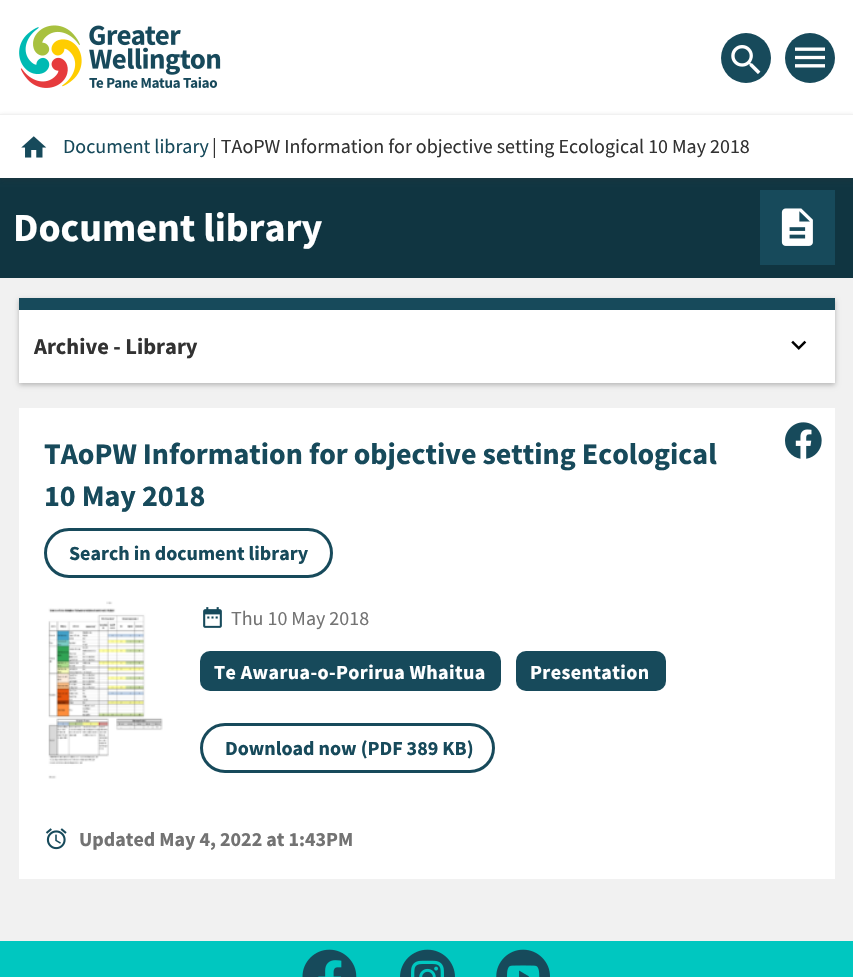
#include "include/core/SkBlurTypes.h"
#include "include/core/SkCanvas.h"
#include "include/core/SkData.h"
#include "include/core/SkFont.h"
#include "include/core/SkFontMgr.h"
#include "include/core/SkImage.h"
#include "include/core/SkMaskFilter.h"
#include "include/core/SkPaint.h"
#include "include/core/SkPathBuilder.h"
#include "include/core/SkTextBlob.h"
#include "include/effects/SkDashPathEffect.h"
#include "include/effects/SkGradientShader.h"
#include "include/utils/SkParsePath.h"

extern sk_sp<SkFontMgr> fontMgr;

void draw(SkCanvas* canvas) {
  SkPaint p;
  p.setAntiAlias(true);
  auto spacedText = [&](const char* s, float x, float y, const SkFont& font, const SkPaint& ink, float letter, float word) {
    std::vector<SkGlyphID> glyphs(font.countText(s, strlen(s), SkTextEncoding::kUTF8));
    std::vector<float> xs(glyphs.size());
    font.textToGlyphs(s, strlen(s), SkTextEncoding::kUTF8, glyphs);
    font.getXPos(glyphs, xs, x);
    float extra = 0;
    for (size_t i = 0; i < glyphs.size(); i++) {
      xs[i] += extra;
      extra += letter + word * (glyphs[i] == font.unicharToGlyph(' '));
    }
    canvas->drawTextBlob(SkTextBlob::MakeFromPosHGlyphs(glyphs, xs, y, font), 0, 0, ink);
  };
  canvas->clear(SkColorSetRGB(241, 241, 241));
  p.setColor(SK_ColorWHITE);
  canvas->drawRect(SkRect::MakeLTRB(0, 0, 853, 114), p);
  canvas->drawImageRect(SkImages::DeferredFromEncodedData(SkData::MakeFromFileName("images/1.png")), SkRect::MakeLTRB(19, 25, 221, 88), SkSamplingOptions());
  p.setColor(SkColorSetRGB(23, 74, 91));
  canvas->drawCircle(746, 58, 25, p);
  canvas->drawImageRect(SkImages::DeferredFromEncodedData(SkData::MakeFromFileName("images/2.png")), SkRect::MakeLTRB(731, 45, 761, 74), SkSamplingOptions());
  canvas->drawCircle(810, 58, 25, p);
  canvas->drawImageRect(SkImages::DeferredFromEncodedData(SkData::MakeFromFileName("images/3.png")), SkRect::MakeLTRB(795, 47, 825, 68), SkSamplingOptions());
  p.setColor(SkColorSetRGB(16, 53, 65));
  canvas->drawRect(SkRect::MakeLTRB(0, 178, 853, 278), p);
  p.setColor(SkColorSetARGB(64, 50, 50, 50));
  p.setMaskFilter(SkMaskFilter::MakeBlur(kNormal_SkBlurStyle, 2.5f));
  canvas->drawRect(SkRect::MakeLTRB(0, 116, 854, 180), p);
  p.setMaskFilter(nullptr);
  p.setColor(SK_ColorWHITE);
  canvas->drawRect(SkRect::MakeLTRB(0, 115, 853, 178), p);
  p.setColor(SkColorSetRGB(241, 241, 241));
  canvas->drawRect(SkRect::MakeLTRB(0, 114, 853, 115), p);
  canvas->drawImageRect(SkImages::DeferredFromEncodedData(SkData::MakeFromFileName("images/4.png")), SkRect::MakeLTRB(21, 136, 47, 158), SkSamplingOptions());
  p.setColor(SkColorSetRGB(23, 74, 91));
  canvas->drawRect(SkRect::MakeLTRB(760, 190, 835, 265), p);
  canvas->drawImageRect(SkImages::DeferredFromEncodedData(SkData::MakeFromFileName("images/5.png")), SkRect::MakeLTRB(781, 208, 813, 246), SkSamplingOptions());
  p.setColor(SkColorSetARGB(64, 0, 0, 0));
  p.setMaskFilter(SkMaskFilter::MakeBlur(kNormal_SkBlurStyle, 2.5f));
  canvas->drawRect(SkRect::MakeLTRB(19, 300, 835, 385), p);
  p.setMaskFilter(nullptr);
  p.setColor(SK_ColorWHITE);
  canvas->drawRect(SkRect::MakeLTRB(19, 310, 835, 383), p);
  p.setColor(SkColorSetRGB(23, 74, 91));
  canvas->drawRect(SkRect::MakeLTRB(19, 298, 835, 310), p);
  canvas->drawImageRect(SkImages::DeferredFromEncodedData(SkData::MakeFromFileName("images/6.png")), SkRect::MakeLTRB(791, 340, 807, 350), SkSamplingOptions());
  p.setColor(SK_ColorWHITE);
  canvas->drawRect(SkRect::MakeLTRB(19, 408, 835, 879), p);
  p.setStyle(SkPaint::kStroke_Style);
  p.setStrokeWidth(3);
  p.setColor(SkColorSetRGB(23, 74, 91));
  canvas->drawRoundRect(SkRect::MakeLTRB(45.5f, 529.5f, 331.5f, 576.5f), 23.5f, 23.5f, p);
  canvas->drawImageRect(SkImages::DeferredFromEncodedData(SkData::MakeFromFileName("images/7.png")), SkRect::MakeLTRB(48, 601, 163, 779), SkSamplingOptions());
  canvas->drawImageRect(SkImages::DeferredFromEncodedData(SkData::MakeFromFileName("images/8.png")), SkRect::MakeLTRB(203, 607, 222, 628), SkSamplingOptions());
  p.setStyle(SkPaint::kFill_Style);
  canvas->drawRoundRect(SkRect::MakeLTRB(200, 651, 501, 691), 10, 10, p);
  canvas->drawRoundRect(SkRect::MakeLTRB(516, 651, 666, 691), 10, 10, p);
  p.setStyle(SkPaint::kStroke_Style);
  canvas->drawRoundRect(SkRect::MakeLTRB(201.5f, 724.5f, 493.5f, 771.5f), 23.5f, 23.5f, p);
  canvas->drawImageRect(SkImages::DeferredFromEncodedData(SkData::MakeFromFileName("images/9.png")), SkRect::MakeLTRB(785, 422, 822, 459), SkSamplingOptions());
  canvas->drawImageRect(SkImages::DeferredFromEncodedData(SkData::MakeFromFileName("images/10.png")), SkRect::MakeLTRB(45, 828, 67, 850), SkSamplingOptions());
  p.setStyle(SkPaint::kFill_Style);
  p.setColor(SkColorSetRGB(0, 199, 192));
  canvas->drawRect(SkRect::MakeLTRB(0, 941, 853, 977), p);
  canvas->drawImageRect(SkImages::DeferredFromEncodedData(SkData::MakeFromFileName("images/11.png")), SkRect::MakeLTRB(302, 949, 357, 977), SkSamplingOptions());
  canvas->drawImageRect(SkImages::DeferredFromEncodedData(SkData::MakeFromFileName("images/12.png")), SkRect::MakeLTRB(400, 949, 455, 977), SkSamplingOptions());
  canvas->drawImageRect(SkImages::DeferredFromEncodedData(SkData::MakeFromFileName("images/13.png")), SkRect::MakeLTRB(496, 949, 550, 977), SkSamplingOptions());
  SkFont font1(fontMgr->matchFamilyStyle("Source Sans Pro", SkFontStyle::Normal()), 20);
  font1.setSubpixel(true);
  p.setColor(SkColorSetRGB(23, 74, 91));
  canvas->drawString("Document library", 63, 153, font1, p);
  p.setColor(SkColorSetRGB(50, 50, 50));
  canvas->drawString("| TAoPW Information for objective setting Ecological 10 May 2018", 212, 153, font1, p);
  SkFont font2(fontMgr->matchFamilyStyle("Source Sans Pro", SkFontStyle::Bold()), 40);
  font2.setSubpixel(true);
  p.setColor(SK_ColorWHITE);
  canvas->drawString("Document library", 13, 241, font2, p);
  SkFont font3(fontMgr->matchFamilyStyle("Source Sans Pro", SkFontStyle::Bold()), 22.5f);
  font3.setSubpixel(true);
  p.setColor(SkColorSetRGB(50, 50, 50));
  canvas->drawString("Archive - Library", 34, 354, font3, p);
  SkFont font4(fontMgr->matchFamilyStyle("Source Sans Pro", SkFontStyle::Bold()), 30);
  font4.setSubpixel(true);
  p.setColor(SkColorSetRGB(23, 74, 91));
  canvas->drawString("TAoPW Information for objective setting Ecological", 44, 464, font4, p);
  canvas->drawString("10 May 2018", 44, 506, font4, p);
  SkFont font5(fontMgr->matchFamilyStyle("Source Sans Pro", SkFontStyle::Bold()), 20);
  font5.setSubpixel(true);
  canvas->drawString("Search in document library", 69, 560, font5, p);
  p.setColor(SkColorSetRGB(115, 115, 115));
  canvas->drawString("Thu 10 May 2018", 231, 625, font1, p);
  p.setColor(SK_ColorWHITE);
  spacedText("Te Awarua-o-Porirua Whaitua", 214, 679, font5, p, 0.4f, 0);
  spacedText("Presentation", 530, 679, font5, p, 0.4f, 0);
  p.setColor(SkColorSetRGB(23, 74, 91));
  canvas->drawString("Download now (PDF 389 KB)", 225, 755, font5, p);
  p.setColor(SkColorSetRGB(115, 115, 115));
  canvas->drawString("Updated May 4, 2022 at 1:43 PM", 79, 846, font5, p);
}
